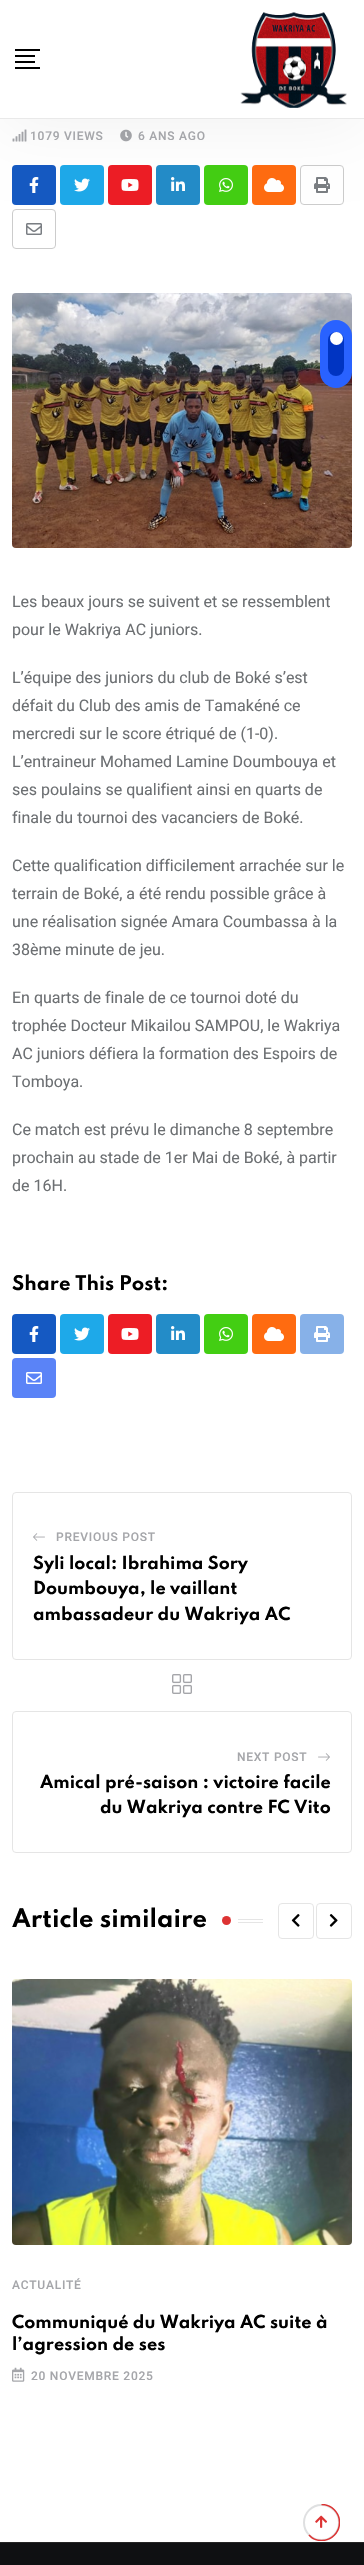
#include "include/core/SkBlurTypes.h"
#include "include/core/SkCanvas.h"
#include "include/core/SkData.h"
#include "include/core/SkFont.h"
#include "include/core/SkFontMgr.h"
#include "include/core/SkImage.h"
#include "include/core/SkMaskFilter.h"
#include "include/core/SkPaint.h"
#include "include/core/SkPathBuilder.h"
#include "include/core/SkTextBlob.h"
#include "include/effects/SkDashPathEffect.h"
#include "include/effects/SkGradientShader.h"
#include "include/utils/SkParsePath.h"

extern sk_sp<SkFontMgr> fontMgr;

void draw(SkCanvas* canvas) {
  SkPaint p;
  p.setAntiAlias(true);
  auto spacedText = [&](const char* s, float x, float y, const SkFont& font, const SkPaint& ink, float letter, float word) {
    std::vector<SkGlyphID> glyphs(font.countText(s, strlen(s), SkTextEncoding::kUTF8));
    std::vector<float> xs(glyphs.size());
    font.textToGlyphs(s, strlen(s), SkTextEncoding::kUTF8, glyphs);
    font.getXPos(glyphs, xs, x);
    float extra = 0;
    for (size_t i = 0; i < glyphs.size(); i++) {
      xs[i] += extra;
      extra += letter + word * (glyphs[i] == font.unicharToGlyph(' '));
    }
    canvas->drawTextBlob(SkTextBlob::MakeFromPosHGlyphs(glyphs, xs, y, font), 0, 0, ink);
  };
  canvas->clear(SK_ColorWHITE);
  canvas->drawImageRect(SkImages::DeferredFromEncodedData(SkData::MakeFromFileName("images/2.png")), SkRect::MakeLTRB(12, 129, 27, 142), SkSamplingOptions());
  canvas->drawImageRect(SkImages::DeferredFromEncodedData(SkData::MakeFromFileName("images/3.png")), SkRect::MakeLTRB(120, 129, 132, 142), SkSamplingOptions());
  p.setColor(SkColorSetRGB(21, 89, 194));
  canvas->drawRoundRect(SkRect::MakeLTRB(12, 165, 56, 205), 4, 4, p);
  canvas->drawImageRect(SkImages::DeferredFromEncodedData(SkData::MakeFromFileName("images/4.png")), SkRect::MakeLTRB(29, 177, 39, 193), SkSamplingOptions());
  p.setColor(SkColorSetRGB(30, 169, 233));
  canvas->drawRoundRect(SkRect::MakeLTRB(60, 165, 104, 205), 4, 4, p);
  canvas->drawImageRect(SkImages::DeferredFromEncodedData(SkData::MakeFromFileName("images/5.png")), SkRect::MakeLTRB(74, 178, 90, 192), SkSamplingOptions());
  p.setColor(SkColorSetRGB(237, 29, 37));
  canvas->drawRoundRect(SkRect::MakeLTRB(108, 165, 152, 205), 4, 4, p);
  canvas->drawImageRect(SkImages::DeferredFromEncodedData(SkData::MakeFromFileName("images/6.png")), SkRect::MakeLTRB(121, 179, 139, 191), SkSamplingOptions());
  p.setColor(SkColorSetRGB(35, 140, 200));
  canvas->drawRoundRect(SkRect::MakeLTRB(156, 165, 200, 205), 4, 4, p);
  canvas->drawImageRect(SkImages::DeferredFromEncodedData(SkData::MakeFromFileName("images/7.png")), SkRect::MakeLTRB(171, 177, 185, 191), SkSamplingOptions());
  p.setColor(SkColorSetRGB(67, 206, 19));
  canvas->drawRoundRect(SkRect::MakeLTRB(204, 165, 248, 205), 4, 4, p);
  canvas->drawImageRect(SkImages::DeferredFromEncodedData(SkData::MakeFromFileName("images/8.png")), SkRect::MakeLTRB(219, 178, 233, 192), SkSamplingOptions());
  p.setColor(SkColorSetRGB(255, 107, 16));
  canvas->drawRoundRect(SkRect::MakeLTRB(252, 165, 296, 205), 4, 4, p);
  canvas->drawImageRect(SkImages::DeferredFromEncodedData(SkData::MakeFromFileName("images/9.png")), SkRect::MakeLTRB(264, 178, 284, 192), SkSamplingOptions());
  p.setStyle(SkPaint::kStroke_Style);
  p.setStrokeWidth(1);
  p.setColor(SkColorSetRGB(204, 204, 204));
  canvas->drawRoundRect(SkRect::MakeLTRB(300.5f, 165.5f, 343.5f, 204.5f), 3.5f, 3.5f, p);
  canvas->drawImageRect(SkImages::DeferredFromEncodedData(SkData::MakeFromFileName("images/10.png")), SkRect::MakeLTRB(314, 177, 330, 193), SkSamplingOptions());
  canvas->drawRoundRect(SkRect::MakeLTRB(12.5f, 209.5f, 55.5f, 248.5f), 3.5f, 3.5f, p);
  canvas->drawImageRect(SkImages::DeferredFromEncodedData(SkData::MakeFromFileName("images/11.png")), SkRect::MakeLTRB(26, 223, 42, 235), SkSamplingOptions());
  p.setStyle(SkPaint::kFill_Style);
  p.setColor(SkColorSetARGB(13, 0, 0, 0));
  p.setMaskFilter(SkMaskFilter::MakeBlur(kNormal_SkBlurStyle, 32.5f));
  canvas->drawRect(SkRect::MakeLTRB(0, 7, 364, 126), p);
  p.setMaskFilter(nullptr);
  p.setColor(SK_ColorWHITE);
  canvas->drawRect(SkRect::MakeLTRB(0, 0, 364, 118), p);
  p.setColor(SkColorSetRGB(233, 233, 233));
  canvas->drawRect(SkRect::MakeLTRB(0, 118, 364, 119), p);
  p.setColor(SK_ColorBLACK);
  canvas->drawRect(SkRect::MakeLTRB(15, 49, 40, 51), p);
  canvas->drawRect(SkRect::MakeLTRB(15, 55, 35, 57), p);
  canvas->drawRect(SkRect::MakeLTRB(15, 61, 35, 63), p);
  canvas->drawRect(SkRect::MakeLTRB(15, 67, 40, 69), p);
  canvas->drawImageRect(SkImages::DeferredFromEncodedData(SkData::MakeFromFileName("images/1.png")), SkRect::MakeLTRB(240, 12, 347, 108), SkSamplingOptions());
  canvas->drawImageRect(SkImages::DeferredFromEncodedData(SkData::MakeFromFileName("images/12.png")), SkRect::MakeLTRB(12, 293, 352, 548), SkSamplingOptions());
  p.setColor(SkColorSetRGB(21, 89, 194));
  canvas->drawRoundRect(SkRect::MakeLTRB(12, 1314, 56, 1354), 4, 4, p);
  canvas->drawImageRect(SkImages::DeferredFromEncodedData(SkData::MakeFromFileName("images/4.png")), SkRect::MakeLTRB(29, 1326, 39, 1342), SkSamplingOptions());
  p.setColor(SkColorSetRGB(30, 169, 233));
  canvas->drawRoundRect(SkRect::MakeLTRB(60, 1314, 104, 1354), 4, 4, p);
  canvas->drawImageRect(SkImages::DeferredFromEncodedData(SkData::MakeFromFileName("images/5.png")), SkRect::MakeLTRB(74, 1327, 90, 1341), SkSamplingOptions());
  p.setColor(SkColorSetRGB(237, 29, 37));
  canvas->drawRoundRect(SkRect::MakeLTRB(108, 1314, 152, 1354), 4, 4, p);
  canvas->drawImageRect(SkImages::DeferredFromEncodedData(SkData::MakeFromFileName("images/6.png")), SkRect::MakeLTRB(121, 1328, 139, 1340), SkSamplingOptions());
  p.setColor(SkColorSetRGB(35, 140, 200));
  canvas->drawRoundRect(SkRect::MakeLTRB(156, 1314, 200, 1354), 4, 4, p);
  canvas->drawImageRect(SkImages::DeferredFromEncodedData(SkData::MakeFromFileName("images/7.png")), SkRect::MakeLTRB(171, 1326, 185, 1340), SkSamplingOptions());
  p.setColor(SkColorSetRGB(67, 206, 19));
  canvas->drawRoundRect(SkRect::MakeLTRB(204, 1314, 248, 1354), 4, 4, p);
  canvas->drawImageRect(SkImages::DeferredFromEncodedData(SkData::MakeFromFileName("images/8.png")), SkRect::MakeLTRB(219, 1327, 233, 1341), SkSamplingOptions());
  p.setColor(SkColorSetRGB(255, 107, 16));
  canvas->drawRoundRect(SkRect::MakeLTRB(252, 1314, 296, 1354), 4, 4, p);
  canvas->drawImageRect(SkImages::DeferredFromEncodedData(SkData::MakeFromFileName("images/9.png")), SkRect::MakeLTRB(264, 1327, 284, 1341), SkSamplingOptions());
  p.setColor(SkColorSetRGB(135, 177, 232));
  canvas->drawRoundRect(SkRect::MakeLTRB(300, 1314, 344, 1354), 4, 4, p);
  canvas->drawImageRect(SkImages::DeferredFromEncodedData(SkData::MakeFromFileName("images/13.png")), SkRect::MakeLTRB(314, 1326, 330, 1342), SkSamplingOptions());
  p.setColor(SkColorSetRGB(90, 131, 247));
  canvas->drawRoundRect(SkRect::MakeLTRB(12, 1358, 56, 1398), 4, 4, p);
  canvas->drawImageRect(SkImages::DeferredFromEncodedData(SkData::MakeFromFileName("images/14.png")), SkRect::MakeLTRB(26, 1372, 42, 1384), SkSamplingOptions());
  p.setStyle(SkPaint::kStroke_Style);
  p.setColor(SkColorSetRGB(229, 229, 229));
  canvas->drawRoundRect(SkRect::MakeLTRB(12.5f, 1492.5f, 351.5f, 1659.5f), 3.5f, 3.5f, p);
  canvas->drawImageRect(SkImages::DeferredFromEncodedData(SkData::MakeFromFileName("images/15.png")), SkRect::MakeLTRB(33, 1533, 45, 1541), SkSamplingOptions());
  canvas->drawImageRect(SkImages::DeferredFromEncodedData(SkData::MakeFromFileName("images/16.png")), SkRect::MakeLTRB(172, 1674, 192, 1694), SkSamplingOptions());
  canvas->drawRoundRect(SkRect::MakeLTRB(12.5f, 1711.5f, 351.5f, 1852.5f), 3.5f, 3.5f, p);
  canvas->drawImageRect(SkImages::DeferredFromEncodedData(SkData::MakeFromFileName("images/17.png")), SkRect::MakeLTRB(318, 1753, 330, 1761), SkSamplingOptions());
  p.setStyle(SkPaint::kFill_Style);
  p.setColor(SkColorSetRGB(221, 51, 51));
  canvas->drawCircle(226.5f, 1920.5f, 4.5f, p);
  p.setColor(SkColorSetRGB(229, 229, 229));
  canvas->drawRect(SkRect::MakeLTRB(238, 1919, 263, 1920), p);
  canvas->drawRect(SkRect::MakeLTRB(238, 1922, 263, 1923), p);
  p.setStyle(SkPaint::kStroke_Style);
  canvas->drawRoundRect(SkRect::MakeLTRB(278.5f, 1903.5f, 313.5f, 1938.5f), 3.5f, 3.5f, p);
  canvas->drawImageRect(SkImages::DeferredFromEncodedData(SkData::MakeFromFileName("images/18.png")), SkRect::MakeLTRB(291, 1914, 300, 1927), SkSamplingOptions());
  canvas->drawRoundRect(SkRect::MakeLTRB(316.5f, 1903.5f, 351.5f, 1938.5f), 3.5f, 3.5f, p);
  canvas->drawImageRect(SkImages::DeferredFromEncodedData(SkData::MakeFromFileName("images/19.png")), SkRect::MakeLTRB(329, 1914, 338, 1927), SkSamplingOptions());
  canvas->drawImageRect(SkImages::DeferredFromEncodedData(SkData::MakeFromFileName("images/20.png")), SkRect::MakeLTRB(12, 1979, 352, 2245), SkSamplingOptions());
  canvas->drawImageRect(SkImages::DeferredFromEncodedData(SkData::MakeFromFileName("images/21.png")), SkRect::MakeLTRB(12, 2367, 25, 2382), SkSamplingOptions());
  p.setStrokeWidth(2);
  p.setColor(SkColorSetRGB(223, 224, 225));
  canvas->drawCircle(321.5f, 2522.5f, 17.5f, p);
  canvas->save();
  canvas->clipRect(SkRect::MakeLTRB(303, 2504, 340, 2541));
  p.setStrokeWidth(1.5f);
  p.setColor(SkColorSetRGB(221, 51, 51));
  canvas->drawPath(SkPathBuilder().moveTo(321.5f, 2504.5f).cubicTo(331.5f, 2504.5f, 339.5f, 2512.5f, 339.5f, 2522.5f).cubicTo(339.5f, 2532.5f, 331.5f, 2540.5f, 321.5f, 2540.5f).cubicTo(316.5f, 2540.5f, 312, 2538.5f, 309, 2535).detach(), p);
  canvas->restore();
  canvas->drawImageRect(SkImages::DeferredFromEncodedData(SkData::MakeFromFileName("images/22.png")), SkRect::MakeLTRB(315, 2515, 327, 2528), SkSamplingOptions());
  p.setStyle(SkPaint::kFill_Style);
  p.setColor(SkColorSetRGB(15, 16, 18));
  canvas->drawRect(SkRect::MakeLTRB(0, 2543, 364, 2565), p);
  p.setColor(SkColorSetRGB(37, 37, 37));
  canvas->drawRect(SkRect::MakeLTRB(0, 2542, 364, 2543), p);
  p.setColor(SkColorSetRGB(41, 98, 255));
  canvas->drawRoundRect(SkRect::MakeLTRB(320, 320, 352, 388), 16, 16, p);
  p.setColor(SkColorSetRGB(0, 52, 194));
  canvas->drawRoundRect(SkRect::MakeLTRB(328, 332, 344, 376), 8, 8, p);
  p.setColor(SK_ColorWHITE);
  canvas->drawCircle(336.5f, 338.5f, 6.5f, p);
  SkFont font1(fontMgr->matchFamilyStyle("Roboto", SkFontStyle(500, SkFontStyle::kNormal_Width, SkFontStyle::kUpright_Slant)), 12);
  font1.setSubpixel(true);
  p.setColor(SkColorSetRGB(165, 166, 170));
  spacedText("1079 VIEWS", 30, 140, font1, p, 0.75f, 0);
  spacedText("6 ANS AGO", 138, 140, font1, p, 0.75f, 0);
  SkFont font2(fontMgr->matchFamilyStyle("Roboto", SkFontStyle::Normal()), 16);
  font2.setSubpixel(true);
  p.setColor(SkColorSetRGB(108, 111, 114));
  canvas->drawString("Les beaux jours se suivent et se ressemblent", 12, 607, font2, p);
  canvas->drawString("pour le Wakriya AC juniors.", 12, 635, font2, p);
  canvas->drawString("L’équipe des juniors du club de Boké s’est", 12, 683, font2, p);
  canvas->drawString("défait du Club des amis de Tamakéné ce", 12, 711, font2, p);
  canvas->drawString("mercredi sur le score étriqué de (1-0).", 12, 739, font2, p);
  canvas->drawString("L’entraineur Mohamed Lamine Doumbouya et", 12, 767, font2, p);
  canvas->drawString("ses poulains se qualifient ainsi en quarts de", 12, 795, font2, p);
  canvas->drawString("finale du tournoi des vacanciers de Boké.", 12, 823, font2, p);
  canvas->drawString("Cette qualification difficilement arrachée sur le", 12, 871, font2, p);
  canvas->drawString("terrain de Boké, a été rendu possible grâce à", 12, 899, font2, p);
  canvas->drawString("une réalisation signée Amara Coumbassa à la", 12, 927, font2, p);
  canvas->drawString("38ème minute de jeu.", 12, 955, font2, p);
  canvas->drawString("En quarts de finale de ce tournoi doté du", 12, 1003, font2, p);
  canvas->drawString("trophée Docteur Mikailou SAMPOU, le Wakriya", 12, 1031, font2, p);
  canvas->drawString("AC juniors défiera la formation des Espoirs de", 12, 1059, font2, p);
  canvas->drawString("Tomboya.", 12, 1087, font2, p);
  canvas->drawString("Ce match est prévu le dimanche 8 septembre", 12, 1135, font2, p);
  canvas->drawString("prochain au stade de 1er Mai de Boké, à partir", 12, 1163, font2, p);
  canvas->drawString("de 16H.", 12, 1191, font2, p);
  SkFont font3(fontMgr->matchFamilyStyle("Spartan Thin", SkFontStyle::Bold()), 18);
  font3.setSubpixel(true);
  p.setColor(SK_ColorBLACK);
  canvas->drawString("Share This Post:", 12, 1290, font3, p);
  p.setColor(SkColorSetRGB(165, 166, 170));
  spacedText("PREVIOUS POST", 56, 1541, font1, p, 0.75f, 0);
  SkFont font4(fontMgr->matchFamilyStyle("Spartan Thin", SkFontStyle::Bold()), 16);
  font4.setSubpixel(true);
  p.setColor(SK_ColorBLACK);
  canvas->drawString("Syli local: Ibrahima Sory", 33, 1569, font4, p);
  canvas->drawString("Doumbouya, le vaillant", 33, 1594, font4, p);
  canvas->drawString("ambassadeur du Wakriya AC", 33, 1620, font4, p);
  p.setColor(SkColorSetRGB(165, 166, 170));
  spacedText("NEXT POST", 237, 1761, font1, p, 0.75f, 0);
  p.setColor(SK_ColorBLACK);
  canvas->drawString("Amical pré-saison : victoire facile", 40, 1788, font4, p);
  canvas->drawString("du Wakriya contre FC Vito", 100, 1813, font4, p);
  SkFont font5(fontMgr->matchFamilyStyle("Spartan Thin", SkFontStyle::Bold()), 22.6f);
  font5.setSubpixel(true);
  canvas->drawString("Article similaire", 12, 1927, font5, p);
  p.setColor(SkColorSetRGB(165, 166, 170));
  spacedText("ACTUALITÉ", 12, 2289, font1, p, 0.75f, 0);
  p.setColor(SK_ColorBLACK);
  canvas->drawString("Communiqué du Wakriya AC suite à", 12, 2328, font4, p);
  canvas->drawString("l’agression de ses", 12, 2350, font4, p);
  p.setColor(SkColorSetRGB(165, 166, 170));
  spacedText("20 NOVEMBRE 2025", 31, 2380, font1, p, 0.75f, 0);
}
